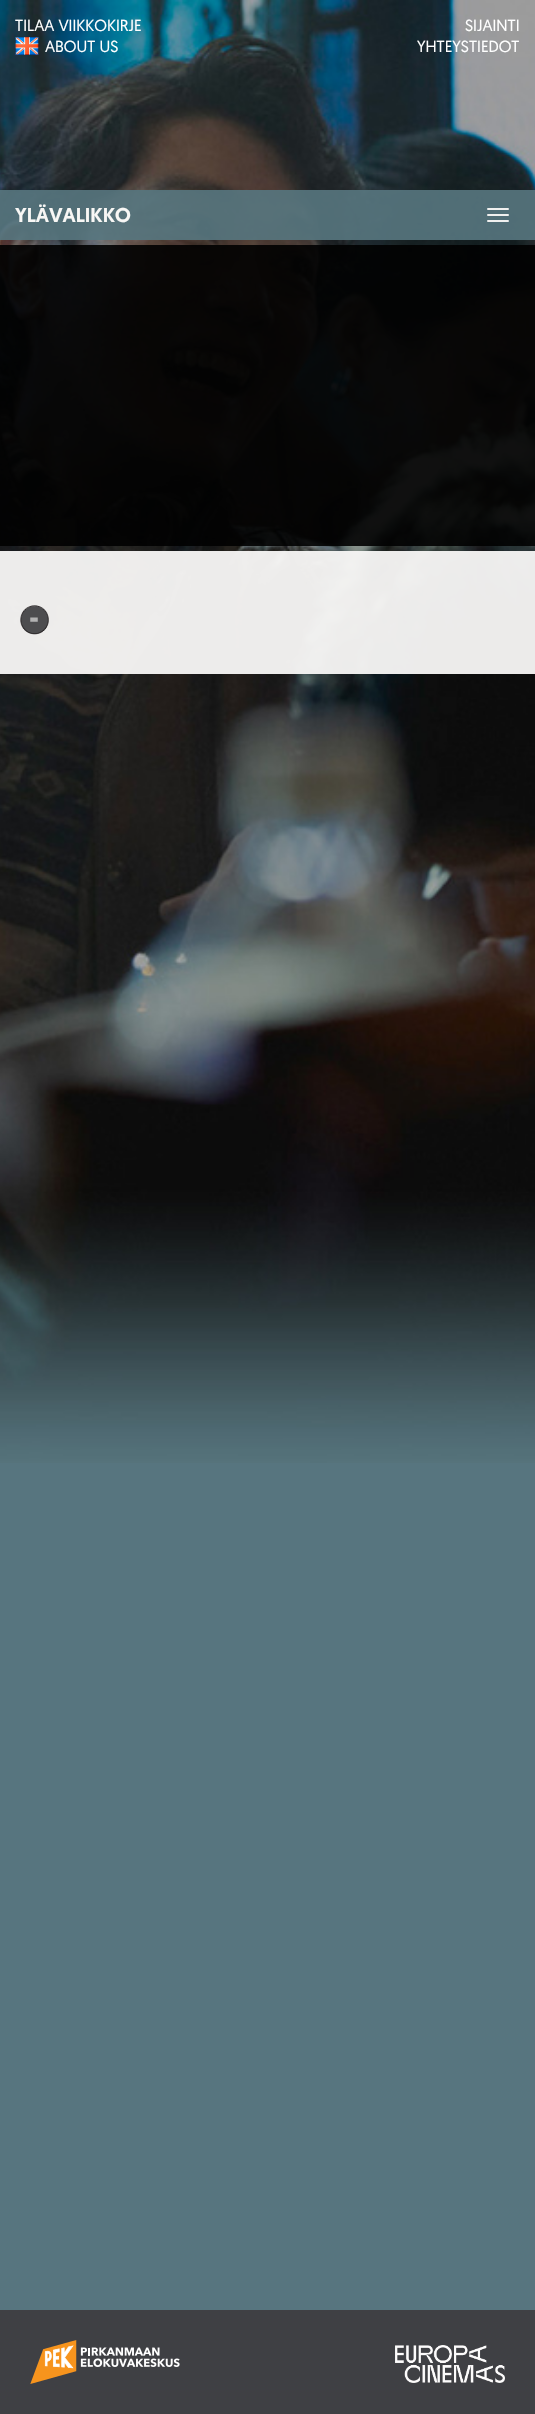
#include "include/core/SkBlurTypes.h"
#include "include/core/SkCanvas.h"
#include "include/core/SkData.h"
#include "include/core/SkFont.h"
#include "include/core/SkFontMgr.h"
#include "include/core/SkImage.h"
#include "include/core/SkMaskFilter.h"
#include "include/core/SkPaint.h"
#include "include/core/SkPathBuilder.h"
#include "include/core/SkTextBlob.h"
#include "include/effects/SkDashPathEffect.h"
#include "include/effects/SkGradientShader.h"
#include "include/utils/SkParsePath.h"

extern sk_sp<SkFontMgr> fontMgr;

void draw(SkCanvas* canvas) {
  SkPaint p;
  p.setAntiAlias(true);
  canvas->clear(SkColorSetRGB(87, 117, 127));
  canvas->drawImageRect(SkImages::DeferredFromEncodedData(SkData::MakeFromFileName("images/1.png")), SkRect::MakeLTRB(0, 0, 535, 1463), SkSamplingOptions());
  canvas->drawImageRect(SkImages::DeferredFromEncodedData(SkData::MakeFromFileName("images/2.png")), SkRect::MakeLTRB(15, 37, 39, 55), SkSamplingOptions());
  p.setColor(SkColorSetARGB(230, 87, 117, 126));
  canvas->drawRect(SkRect::MakeLTRB(0, 190, 535, 240), p);
  p.setColor(SkColorSetRGB(240, 240, 239));
  canvas->drawRoundRect(SkRect::MakeLTRB(487, 208, 509, 210), 1, 1, p);
  canvas->drawRoundRect(SkRect::MakeLTRB(487, 214, 509, 216), 1, 1, p);
  canvas->drawRoundRect(SkRect::MakeLTRB(487, 220, 509, 222), 1, 1, p);
  p.setColor(SkColorSetARGB(230, 0, 0, 0));
  canvas->drawRect(SkRect::MakeLTRB(0, 245, 535, 546), p);
  p.setColor(SkColorSetARGB(242, 248, 247, 245));
  canvas->drawRect(SkRect::MakeLTRB(0, 551, 535, 581), p);
  canvas->drawRect(SkRect::MakeLTRB(0, 581, 535, 674), p);
  canvas->drawImageRect(SkImages::DeferredFromEncodedData(SkData::MakeFromFileName("images/3.png")), SkRect::MakeLTRB(20, 605, 49, 635), SkSamplingOptions());
  p.setColor(SkColorSetRGB(63, 64, 68));
  canvas->drawRect(SkRect::MakeLTRB(0, 2310, 535, 2414), p);
  canvas->drawImageRect(SkImages::DeferredFromEncodedData(SkData::MakeFromFileName("images/4.png")), SkRect::MakeLTRB(30, 2340, 180, 2384), SkSamplingOptions());
  canvas->drawImageRect(SkImages::DeferredFromEncodedData(SkData::MakeFromFileName("images/5.png")), SkRect::MakeLTRB(395, 2345, 505, 2383), SkSamplingOptions());
  SkFont font1(fontMgr->matchFamilyStyle("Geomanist", SkFontStyle::Normal()), 16);
  font1.setSubpixel(true);
  p.setColor(SK_ColorWHITE);
  canvas->drawString("TILAA VIIKKOKIRJE", 15, 31, font1, p);
  canvas->drawString("ABOUT US", 45, 52, font1, p);
  canvas->drawString("SIJAINTI", 465, 31, font1, p);
  canvas->drawString("YHTEYSTIEDOT", 417, 52, font1, p);
  SkFont font2(fontMgr->matchFamilyStyle("Geomanist", SkFontStyle(500, SkFontStyle::kNormal_Width, SkFontStyle::kUpright_Slant)), 20);
  font2.setSubpixel(true);
  p.setColor(SkColorSetRGB(248, 247, 245));
  canvas->drawString("YLÄVALIKKO", 15, 222, font2, p);
}
